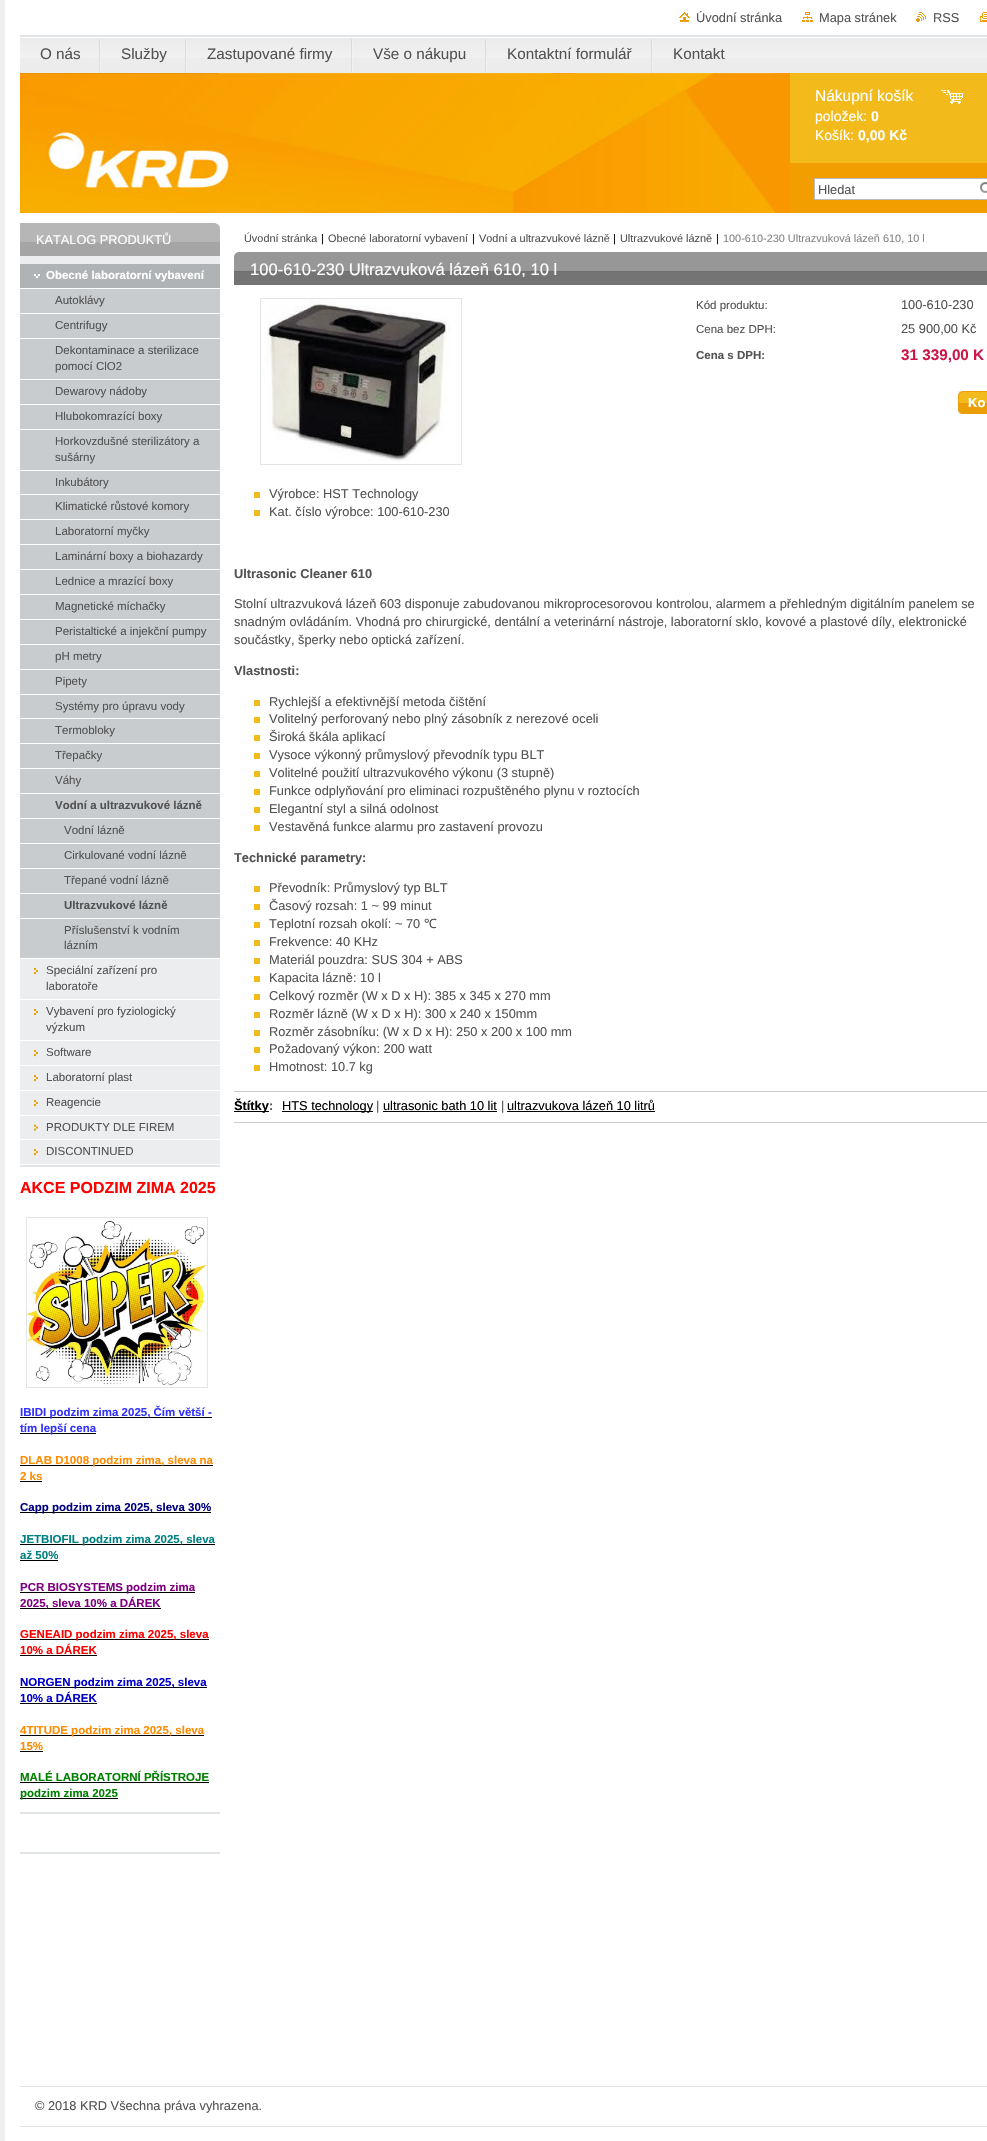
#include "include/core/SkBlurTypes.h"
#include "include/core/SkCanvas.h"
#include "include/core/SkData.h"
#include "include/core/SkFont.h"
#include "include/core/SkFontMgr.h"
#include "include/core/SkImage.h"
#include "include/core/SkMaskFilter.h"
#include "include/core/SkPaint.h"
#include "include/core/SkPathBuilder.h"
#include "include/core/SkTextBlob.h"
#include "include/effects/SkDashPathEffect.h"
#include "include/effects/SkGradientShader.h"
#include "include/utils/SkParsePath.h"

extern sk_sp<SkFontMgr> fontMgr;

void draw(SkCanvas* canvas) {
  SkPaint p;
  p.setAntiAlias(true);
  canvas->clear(SK_ColorWHITE);
  p.setColor(SkColorSetRGB(239, 239, 239));
  canvas->drawRect(SkRect::MakeLTRB(0, 0, 5, 2141), p);
  canvas->drawImageRect(SkImages::DeferredFromEncodedData(SkData::MakeFromFileName("images/1.png")), SkRect::MakeLTRB(679, 12, 690, 22), SkSamplingOptions());
  canvas->drawImageRect(SkImages::DeferredFromEncodedData(SkData::MakeFromFileName("images/2.png")), SkRect::MakeLTRB(802, 12, 813, 22), SkSamplingOptions());
  canvas->drawImageRect(SkImages::DeferredFromEncodedData(SkData::MakeFromFileName("images/3.png")), SkRect::MakeLTRB(916, 12, 926, 22), SkSamplingOptions());
  canvas->drawImageRect(SkImages::DeferredFromEncodedData(SkData::MakeFromFileName("images/4.png")), SkRect::MakeLTRB(980, 12, 987, 22), SkSamplingOptions());
  p.setColor(SkColorSetRGB(236, 236, 236));
  canvas->drawRect(SkRect::MakeLTRB(20, 58, 987, 73), p);
  canvas->drawImageRect(SkImages::DeferredFromEncodedData(SkData::MakeFromFileName("images/5.png")), SkRect::MakeLTRB(20, 35, 987, 58), SkSamplingOptions());
  canvas->drawImageRect(SkImages::DeferredFromEncodedData(SkData::MakeFromFileName("images/6.png")), SkRect::MakeLTRB(99, 39, 101, 73), SkSamplingOptions());
  canvas->drawImageRect(SkImages::DeferredFromEncodedData(SkData::MakeFromFileName("images/6.png")), SkRect::MakeLTRB(185, 39, 187, 73), SkSamplingOptions());
  canvas->drawImageRect(SkImages::DeferredFromEncodedData(SkData::MakeFromFileName("images/6.png")), SkRect::MakeLTRB(351, 39, 353, 73), SkSamplingOptions());
  canvas->drawImageRect(SkImages::DeferredFromEncodedData(SkData::MakeFromFileName("images/6.png")), SkRect::MakeLTRB(485, 39, 487, 73), SkSamplingOptions());
  canvas->drawImageRect(SkImages::DeferredFromEncodedData(SkData::MakeFromFileName("images/6.png")), SkRect::MakeLTRB(651, 39, 653, 73), SkSamplingOptions());
  canvas->drawImageRect(SkImages::DeferredFromEncodedData(SkData::MakeFromFileName("images/7.png")), SkRect::MakeLTRB(20, 73, 790, 213), SkSamplingOptions());
  p.setColor(SkColorSetRGB(243, 186, 27));
  canvas->drawRect(SkRect::MakeLTRB(790, 73, 987, 163), p);
  canvas->drawImageRect(SkImages::DeferredFromEncodedData(SkData::MakeFromFileName("images/8.png")), SkRect::MakeLTRB(941, 90, 963, 104), SkSamplingOptions());
  canvas->drawImageRect(SkImages::DeferredFromEncodedData(SkData::MakeFromFileName("images/9.png")), SkRect::MakeLTRB(790, 163, 987, 213), SkSamplingOptions());
  canvas->drawImageRect(SkImages::DeferredFromEncodedData(SkData::MakeFromFileName("images/10.png")), SkRect::MakeLTRB(980, 182, 987, 193), SkSamplingOptions());
  p.setColor(SkColorSetRGB(226, 229, 232));
  canvas->drawRect(SkRect::MakeLTRB(20, 1165, 220, 1167), p);
  p.setColor(SkColorSetRGB(235, 237, 239));
  canvas->drawRect(SkRect::MakeLTRB(20, 256, 220, 1164), p);
  canvas->drawImageRect(SkImages::DeferredFromEncodedData(SkData::MakeFromFileName("images/11.png")), SkRect::MakeLTRB(20, 223, 220, 256), SkSamplingOptions());
  p.setColor(SkColorSetRGB(176, 179, 181));
  canvas->drawRect(SkRect::MakeLTRB(20, 264, 220, 288), p);
  canvas->drawImageRect(SkImages::DeferredFromEncodedData(SkData::MakeFromFileName("images/12.png")), SkRect::MakeLTRB(34, 274, 40, 279), SkSamplingOptions());
  p.setColor(SK_ColorWHITE);
  canvas->drawRect(SkRect::MakeLTRB(20, 288, 220, 289), p);
  p.setColor(SkColorSetRGB(201, 204, 207));
  canvas->drawRect(SkRect::MakeLTRB(20, 289, 220, 958), p);
  p.setColor(SK_ColorWHITE);
  canvas->drawRect(SkRect::MakeLTRB(20, 313, 220, 314), p);
  canvas->drawRect(SkRect::MakeLTRB(20, 338, 220, 339), p);
  canvas->drawRect(SkRect::MakeLTRB(20, 379, 220, 380), p);
  canvas->drawRect(SkRect::MakeLTRB(20, 404, 220, 405), p);
  canvas->drawRect(SkRect::MakeLTRB(20, 429, 220, 430), p);
  canvas->drawRect(SkRect::MakeLTRB(20, 470, 220, 471), p);
  canvas->drawRect(SkRect::MakeLTRB(20, 494, 220, 495), p);
  canvas->drawRect(SkRect::MakeLTRB(20, 519, 220, 520), p);
  canvas->drawRect(SkRect::MakeLTRB(20, 544, 220, 545), p);
  canvas->drawRect(SkRect::MakeLTRB(20, 569, 220, 570), p);
  canvas->drawRect(SkRect::MakeLTRB(20, 594, 220, 595), p);
  canvas->drawRect(SkRect::MakeLTRB(20, 619, 220, 620), p);
  canvas->drawRect(SkRect::MakeLTRB(20, 644, 220, 645), p);
  canvas->drawRect(SkRect::MakeLTRB(20, 669, 220, 670), p);
  canvas->drawRect(SkRect::MakeLTRB(20, 694, 220, 695), p);
  canvas->drawRect(SkRect::MakeLTRB(20, 718, 220, 719), p);
  canvas->drawRect(SkRect::MakeLTRB(20, 743, 220, 744), p);
  canvas->drawRect(SkRect::MakeLTRB(20, 768, 220, 769), p);
  canvas->drawRect(SkRect::MakeLTRB(20, 793, 220, 794), p);
  canvas->drawRect(SkRect::MakeLTRB(20, 818, 220, 819), p);
  canvas->drawRect(SkRect::MakeLTRB(20, 843, 220, 844), p);
  canvas->drawRect(SkRect::MakeLTRB(20, 868, 220, 869), p);
  canvas->drawRect(SkRect::MakeLTRB(20, 893, 220, 894), p);
  canvas->drawRect(SkRect::MakeLTRB(20, 918, 220, 919), p);
  canvas->drawRect(SkRect::MakeLTRB(20, 958, 220, 959), p);
  canvas->drawImageRect(SkImages::DeferredFromEncodedData(SkData::MakeFromFileName("images/13.png")), SkRect::MakeLTRB(34, 968, 38, 974), SkSamplingOptions());
  canvas->drawRect(SkRect::MakeLTRB(20, 999, 220, 1000), p);
  canvas->drawImageRect(SkImages::DeferredFromEncodedData(SkData::MakeFromFileName("images/13.png")), SkRect::MakeLTRB(34, 1009, 38, 1015), SkSamplingOptions());
  canvas->drawRect(SkRect::MakeLTRB(20, 1040, 220, 1041), p);
  canvas->drawImageRect(SkImages::DeferredFromEncodedData(SkData::MakeFromFileName("images/14.png")), SkRect::MakeLTRB(34, 1050, 38, 1057), SkSamplingOptions());
  canvas->drawRect(SkRect::MakeLTRB(20, 1065, 220, 1066), p);
  canvas->drawImageRect(SkImages::DeferredFromEncodedData(SkData::MakeFromFileName("images/14.png")), SkRect::MakeLTRB(34, 1075, 38, 1082), SkSamplingOptions());
  canvas->drawRect(SkRect::MakeLTRB(20, 1090, 220, 1091), p);
  canvas->drawImageRect(SkImages::DeferredFromEncodedData(SkData::MakeFromFileName("images/14.png")), SkRect::MakeLTRB(34, 1100, 38, 1107), SkSamplingOptions());
  canvas->drawRect(SkRect::MakeLTRB(20, 1115, 220, 1116), p);
  canvas->drawImageRect(SkImages::DeferredFromEncodedData(SkData::MakeFromFileName("images/15.png")), SkRect::MakeLTRB(34, 1124, 38, 1131), SkSamplingOptions());
  canvas->drawRect(SkRect::MakeLTRB(20, 1139, 220, 1140), p);
  canvas->drawImageRect(SkImages::DeferredFromEncodedData(SkData::MakeFromFileName("images/14.png")), SkRect::MakeLTRB(34, 1149, 38, 1156), SkSamplingOptions());
  p.setColor(SkColorSetRGB(226, 229, 232));
  canvas->drawRect(SkRect::MakeLTRB(20, 1812, 220, 1814), p);
  p.setStyle(SkPaint::kStroke_Style);
  p.setStrokeWidth(1);
  canvas->drawRect(SkRect::MakeLTRB(26.5f, 1217.5f, 207.5f, 1387.5f), p);
  canvas->drawImageRect(SkImages::DeferredFromEncodedData(SkData::MakeFromFileName("images/16.png")), SkRect::MakeLTRB(27, 1221, 207, 1386), SkSamplingOptions());
  p.setStyle(SkPaint::kFill_Style);
  p.setColor(SK_ColorBLACK);
  canvas->drawRect(SkRect::MakeLTRB(20, 1417, 212, 1418), p);
  canvas->drawRect(SkRect::MakeLTRB(20, 1433, 96, 1434), p);
  canvas->drawRect(SkRect::MakeLTRB(20, 1465, 213, 1466), p);
  canvas->drawRect(SkRect::MakeLTRB(20, 1481, 42, 1482), p);
  canvas->drawRect(SkRect::MakeLTRB(20, 1512, 211, 1513), p);
  canvas->drawRect(SkRect::MakeLTRB(20, 1544, 215, 1545), p);
  canvas->drawRect(SkRect::MakeLTRB(20, 1560, 58, 1561), p);
  canvas->drawRect(SkRect::MakeLTRB(20, 1592, 195, 1593), p);
  canvas->drawRect(SkRect::MakeLTRB(20, 1608, 161, 1609), p);
  canvas->drawRect(SkRect::MakeLTRB(20, 1639, 209, 1640), p);
  canvas->drawRect(SkRect::MakeLTRB(20, 1655, 97, 1656), p);
  canvas->drawRect(SkRect::MakeLTRB(20, 1687, 207, 1688), p);
  canvas->drawRect(SkRect::MakeLTRB(20, 1703, 97, 1704), p);
  canvas->drawRect(SkRect::MakeLTRB(20, 1735, 204, 1736), p);
  canvas->drawRect(SkRect::MakeLTRB(20, 1751, 43, 1752), p);
  canvas->drawRect(SkRect::MakeLTRB(20, 1782, 209, 1783), p);
  canvas->drawRect(SkRect::MakeLTRB(20, 1798, 118, 1799), p);
  p.setColor(SkColorSetRGB(226, 229, 232));
  canvas->drawRect(SkRect::MakeLTRB(20, 1852, 220, 1854), p);
  canvas->drawImageRect(SkImages::DeferredFromEncodedData(SkData::MakeFromFileName("images/17.png")), SkRect::MakeLTRB(234, 252, 987, 285), SkSamplingOptions());
  canvas->drawImageRect(SkImages::DeferredFromEncodedData(SkData::MakeFromFileName("images/18.png")), SkRect::MakeLTRB(958, 391, 987, 403), SkSamplingOptions());
  canvas->drawImageRect(SkImages::DeferredFromEncodedData(SkData::MakeFromFileName("images/19.png")), SkRect::MakeLTRB(958, 403, 987, 414), SkSamplingOptions());
  p.setStyle(SkPaint::kStroke_Style);
  canvas->drawRect(SkRect::MakeLTRB(260.5f, 298.5f, 461.5f, 464.5f), p);
  canvas->drawImageRect(SkImages::DeferredFromEncodedData(SkData::MakeFromFileName("images/20.png")), SkRect::MakeLTRB(261, 299, 452, 461), SkSamplingOptions());
  p.setStyle(SkPaint::kFill_Style);
  p.setColor(SkColorSetRGB(243, 186, 27));
  canvas->drawRect(SkRect::MakeLTRB(254, 492, 260, 498), p);
  canvas->drawRect(SkRect::MakeLTRB(254, 510, 260, 516), p);
  canvas->drawRect(SkRect::MakeLTRB(254, 700, 260, 706), p);
  canvas->drawRect(SkRect::MakeLTRB(254, 717, 260, 723), p);
  canvas->drawRect(SkRect::MakeLTRB(254, 735, 260, 741), p);
  canvas->drawRect(SkRect::MakeLTRB(254, 753, 260, 759), p);
  canvas->drawRect(SkRect::MakeLTRB(254, 771, 260, 777), p);
  canvas->drawRect(SkRect::MakeLTRB(254, 789, 260, 795), p);
  canvas->drawRect(SkRect::MakeLTRB(254, 807, 260, 813), p);
  canvas->drawRect(SkRect::MakeLTRB(254, 825, 260, 831), p);
  canvas->drawRect(SkRect::MakeLTRB(254, 886, 260, 892), p);
  canvas->drawRect(SkRect::MakeLTRB(254, 904, 260, 910), p);
  canvas->drawRect(SkRect::MakeLTRB(254, 922, 260, 928), p);
  canvas->drawRect(SkRect::MakeLTRB(254, 940, 260, 946), p);
  canvas->drawRect(SkRect::MakeLTRB(254, 958, 260, 964), p);
  canvas->drawRect(SkRect::MakeLTRB(254, 976, 260, 982), p);
  canvas->drawRect(SkRect::MakeLTRB(254, 994, 260, 1000), p);
  canvas->drawRect(SkRect::MakeLTRB(254, 1012, 260, 1018), p);
  canvas->drawRect(SkRect::MakeLTRB(254, 1030, 260, 1036), p);
  canvas->drawRect(SkRect::MakeLTRB(254, 1047, 260, 1053), p);
  canvas->drawRect(SkRect::MakeLTRB(254, 1065, 260, 1071), p);
  p.setColor(SkColorSetRGB(200, 203, 207));
  canvas->drawRect(SkRect::MakeLTRB(234, 1091, 987, 1092), p);
  canvas->drawRect(SkRect::MakeLTRB(234, 1122, 987, 1123), p);
  p.setColor(SK_ColorBLACK);
  canvas->drawRect(SkRect::MakeLTRB(234, 1111, 269, 1112), p);
  canvas->drawRect(SkRect::MakeLTRB(282, 1111, 373, 1112), p);
  canvas->drawRect(SkRect::MakeLTRB(383, 1111, 497, 1112), p);
  canvas->drawRect(SkRect::MakeLTRB(507, 1111, 655, 1112), p);
  p.setColor(SkColorSetRGB(226, 229, 232));
  canvas->drawRect(SkRect::MakeLTRB(20, 2086, 987, 2087), p);
  canvas->drawRect(SkRect::MakeLTRB(20, 2126, 987, 2127), p);
  SkFont font1(fontMgr->matchFamilyStyle("Liberation Sans", SkFontStyle::Normal()), 12.8f);
  font1.setSubpixel(true);
  p.setColor(SkColorSetRGB(83, 83, 83));
  canvas->drawString("Úvodní stránka", 696, 22, font1, p);
  canvas->drawString("Mapa stránek", 819, 22, font1, p);
  canvas->drawString("RSS", 933, 22, font1, p);
  SkFont font2(fontMgr->matchFamilyStyle("Liberation Sans", SkFontStyle::Normal()), 15.25f);
  font2.setSubpixel(true);
  canvas->drawString("O nás", 40, 59, font2, p);
  canvas->drawString("Služby", 121, 59, font2, p);
  canvas->drawString("Zastupované firmy", 207, 59, font2, p);
  canvas->drawString("Vše o nákupu", 373, 59, font2, p);
  canvas->drawString("Kontaktní formulář", 507, 59, font2, p);
  canvas->drawString("Kontakt", 673, 59, font2, p);
  SkFont font3(fontMgr->matchFamilyStyle("Liberation Sans", SkFontStyle::Normal()), 15.5f);
  font3.setSubpixel(true);
  p.setColor(SK_ColorWHITE);
  canvas->drawString("Nákupní košík", 815, 101, font3, p);
  SkFont font4(fontMgr->matchFamilyStyle("Liberation Sans", SkFontStyle::Normal()), 14);
  font4.setSubpixel(true);
  canvas->drawString("položek:", 815, 121, font4, p);
  SkFont font5(fontMgr->matchFamilyStyle("Liberation Sans", SkFontStyle::Bold()), 14);
  font5.setSubpixel(true);
  canvas->drawString("0", 871, 121, font5, p);
  canvas->drawString("Košík:", 815, 140, font4, p);
  canvas->drawString("0,00 Kč", 858, 140, font5, p);
  p.setColor(SkColorSetRGB(83, 83, 83));
  canvas->drawString("Hledat", 818, 194, font1, p);
  SkFont font6(fontMgr->matchFamilyStyle("Liberation Sans", SkFontStyle::Normal()), 12.75f);
  font6.setSubpixel(true);
  p.setColor(SK_ColorWHITE);
  canvas->drawString("KATALOG PRODUKTŮ", 36, 244, font6, p);
  SkFont font7(fontMgr->matchFamilyStyle("Liberation Sans", SkFontStyle::Bold()), 11.5f);
  font7.setSubpixel(true);
  canvas->drawString("Obecné laboratorní vybavení", 46, 279, font7, p);
  SkFont font8(fontMgr->matchFamilyStyle("Liberation Sans", SkFontStyle::Normal()), 11.5f);
  font8.setSubpixel(true);
  p.setColor(SkColorSetRGB(83, 83, 83));
  canvas->drawString("Autoklávy", 55, 304, font8, p);
  canvas->drawString("Centrifugy", 55, 329, font8, p);
  canvas->drawString("Dekontaminace a sterilizace", 55, 354, font8, p);
  canvas->drawString("pomocí ClO2", 55, 370, font8, p);
  canvas->drawString("Dewarovy nádoby", 55, 395, font8, p);
  canvas->drawString("Hlubokomrazící boxy", 55, 420, font8, p);
  canvas->drawString("Horkovzdušné sterilizátory a", 55, 445, font8, p);
  canvas->drawString("sušárny", 55, 461, font8, p);
  canvas->drawString("Inkubátory", 55, 486, font8, p);
  canvas->drawString("Klimatické růstové komory", 55, 510, font8, p);
  canvas->drawString("Laboratorní myčky", 55, 535, font8, p);
  canvas->drawString("Laminární boxy a biohazardy", 55, 560, font8, p);
  canvas->drawString("Lednice a mrazící boxy", 55, 585, font8, p);
  canvas->drawString("Magnetické míchačky", 55, 610, font8, p);
  canvas->drawString("Peristaltické a injekční pumpy", 55, 635, font8, p);
  canvas->drawString("pH metry", 55, 660, font8, p);
  canvas->drawString("Pipety", 55, 685, font8, p);
  canvas->drawString("Systémy pro úpravu vody", 55, 710, font8, p);
  canvas->drawString("Termobloky", 55, 734, font8, p);
  canvas->drawString("Třepačky", 55, 759, font8, p);
  canvas->drawString("Váhy", 55, 784, font8, p);
  canvas->drawString("Vodní a ultrazvukové lázně", 55, 809, font7, p);
  canvas->drawString("Vodní lázně", 64, 834, font8, p);
  canvas->drawString("Cirkulované vodní lázně", 64, 859, font8, p);
  canvas->drawString("Třepané vodní lázně", 64, 884, font8, p);
  canvas->drawString("Ultrazvukové lázně", 64, 909, font7, p);
  canvas->drawString("Příslušenství k vodním", 64, 934, font8, p);
  canvas->drawString("lázním", 64, 949, font8, p);
  canvas->drawString("Speciální zařízení pro", 46, 974, font8, p);
  canvas->drawString("laboratoře", 46, 990, font8, p);
  canvas->drawString("Vybavení pro fyziologický", 46, 1015, font8, p);
  canvas->drawString("výzkum", 46, 1031, font8, p);
  canvas->drawString("Software", 46, 1056, font8, p);
  canvas->drawString("Laboratorní plast", 46, 1081, font8, p);
  canvas->drawString("Reagencie", 46, 1106, font8, p);
  canvas->drawString("PRODUKTY DLE FIREM", 46, 1131, font8, p);
  canvas->drawString("DISCONTINUED", 46, 1155, font8, p);
  SkFont font9(fontMgr->matchFamilyStyle("Liberation Sans", SkFontStyle::Bold()), 16);
  font9.setSubpixel(true);
  p.setColor(SkColorSetRGB(255, 0, 0));
  canvas->drawString("AKCE PODZIM ZIMA 2025", 20, 1193, font9, p);
  p.setColor(SkColorSetRGB(51, 51, 255));
  canvas->drawString("IBIDI podzim zima 2025, Čím větší -", 20, 1416, font7, p);
  canvas->drawString("tím lepší cena", 20, 1432, font7, p);
  p.setColor(SkColorSetRGB(255, 140, 0));
  canvas->drawString("DLAB D1008 podzim zima, sleva na", 20, 1464, font7, p);
  canvas->drawString("2 ks", 20, 1480, font7, p);
  p.setColor(SkColorSetRGB(0, 0, 128));
  canvas->drawString("Capp podzim zima 2025, sleva 30%", 20, 1511, font7, p);
  p.setColor(SkColorSetRGB(0, 128, 128));
  canvas->drawString("JETBIOFIL podzim zima 2025, sleva", 20, 1543, font7, p);
  canvas->drawString("až 50%", 20, 1559, font7, p);
  p.setColor(SkColorSetRGB(128, 0, 128));
  canvas->drawString("PCR BIOSYSTEMS podzim zima", 20, 1591, font7, p);
  canvas->drawString("2025, sleva 10% a DÁREK", 20, 1607, font7, p);
  p.setColor(SkColorSetRGB(255, 0, 0));
  canvas->drawString("GENEAID podzim zima 2025, sleva", 20, 1638, font7, p);
  canvas->drawString("10% a DÁREK", 20, 1654, font7, p);
  p.setColor(SkColorSetRGB(0, 0, 205));
  canvas->drawString("NORGEN podzim zima 2025, sleva", 20, 1686, font7, p);
  canvas->drawString("10% a DÁREK", 20, 1702, font7, p);
  p.setColor(SkColorSetRGB(255, 140, 0));
  canvas->drawString("4TITUDE podzim zima 2025, sleva", 20, 1734, font7, p);
  canvas->drawString("15%", 20, 1750, font7, p);
  p.setColor(SkColorSetRGB(0, 128, 0));
  canvas->drawString("MALÉ LABORATORNÍ PŘÍSTROJE", 20, 1781, font7, p);
  canvas->drawString("podzim zima 2025", 20, 1797, font7, p);
  SkFont font10(fontMgr->matchFamilyStyle("Liberation Sans", SkFontStyle::Normal()), 10.9f);
  font10.setSubpixel(true);
  p.setColor(SkColorSetRGB(83, 83, 83));
  canvas->drawString("Úvodní stránka", 244, 242, font10, p);
  p.setColor(SK_ColorBLACK);
  canvas->drawString("|", 321, 242, font10, p);
  p.setColor(SkColorSetRGB(83, 83, 83));
  canvas->drawString("Obecné laboratorní vybavení", 328, 242, font10, p);
  p.setColor(SK_ColorBLACK);
  canvas->drawString("|", 472, 242, font10, p);
  p.setColor(SkColorSetRGB(83, 83, 83));
  canvas->drawString("Vodní a ultrazvukové lázně", 479, 242, font10, p);
  p.setColor(SK_ColorBLACK);
  canvas->drawString("|", 613, 242, font10, p);
  p.setColor(SkColorSetRGB(83, 83, 83));
  canvas->drawString("Ultrazvukové lázně", 620, 242, font10, p);
  p.setColor(SK_ColorBLACK);
  canvas->drawString("|", 716, 242, font10, p);
  p.setColor(SkColorSetRGB(135, 135, 135));
  canvas->drawString("100-610-230 Ultrazvuková lázeň 610, 10 l", 723, 242, font10, p);
  SkFont font11(fontMgr->matchFamilyStyle("Liberation Sans", SkFontStyle::Normal()), 16.6f);
  font11.setSubpixel(true);
  p.setColor(SK_ColorWHITE);
  canvas->drawString("100-610-230 Ultrazvuková lázeň 610, 10 l", 250, 275, font11, p);
  p.setColor(SkColorSetRGB(83, 83, 83));
  canvas->drawString("Kód produktu:", 696, 309, font8, p);
  canvas->drawString("100-610-230", 901, 309, font1, p);
  canvas->drawString("Cena bez DPH:", 696, 333, font8, p);
  canvas->drawString("25 900,00 Kč", 901, 333, font1, p);
  canvas->drawString("Cena s DPH:", 696, 359, font7, p);
  SkFont font12(fontMgr->matchFamilyStyle("Liberation Sans", SkFontStyle::Bold()), 15.25f);
  font12.setSubpixel(true);
  p.setColor(SkColorSetRGB(204, 23, 73));
  canvas->drawString("31 339,00 K", 901, 360, font12, p);
  SkFont font13(fontMgr->matchFamilyStyle("Liberation Sans", SkFontStyle::Bold()), 13);
  font13.setSubpixel(true);
  p.setColor(SK_ColorWHITE);
  canvas->drawString("Ko", 968, 407, font13, p);
  p.setColor(SkColorSetRGB(83, 83, 83));
  canvas->drawString("Výrobce: HST Technology", 269, 498, font1, p);
  canvas->drawString("Kat. číslo výrobce: 100-610-230", 269, 516, font1, p);
  SkFont font14(fontMgr->matchFamilyStyle("Liberation Sans", SkFontStyle::Bold()), 12.8f);
  font14.setSubpixel(true);
  canvas->drawString("Ultrasonic Cleaner 610", 234, 578, font14, p);
  canvas->drawString("Stolní ultrazvuková lázeň 603 disponuje zabudovanou mikroprocesorovou kontrolou, alarmem a přehledným digitálním panelem se", 234, 608, font1, p);
  canvas->drawString("snadným ovládáním. Vhodná pro chirurgické, dentální a veterinární nástroje, laboratorní sklo, kovové a plastové díly, elektronické", 234, 626, font1, p);
  canvas->drawString("součástky, šperky nebo optická zařízení.", 234, 644, font1, p);
  canvas->drawString("Vlastnosti:", 234, 675, font14, p);
  canvas->drawString("Rychlejší a efektivnější metoda čištění", 269, 706, font1, p);
  canvas->drawString("Volitelný perforovaný nebo plný zásobník z nerezové oceli", 269, 723, font1, p);
  canvas->drawString("Široká škála aplikací", 269, 741, font1, p);
  canvas->drawString("Vysoce výkonný průmyslový převodník typu BLT", 269, 759, font1, p);
  canvas->drawString("Volitelné použití ultrazvukového výkonu (3 stupně)", 269, 777, font1, p);
  canvas->drawString("Funkce odplyňování pro eliminaci rozpuštěného plynu v roztocích", 269, 795, font1, p);
  canvas->drawString("Elegantní styl a silná odolnost", 269, 813, font1, p);
  canvas->drawString("Vestavěná funkce alarmu pro zastavení provozu", 269, 831, font1, p);
  canvas->drawString("Technické parametry:", 234, 862, font14, p);
  canvas->drawString("Převodník: Průmyslový typ BLT", 269, 892, font1, p);
  canvas->drawString("Časový rozsah: 1 ~ 99 minut", 269, 910, font1, p);
  canvas->drawString("Teplotní rozsah okolí: ~ 70", 269, 928, font1, p);
  SkFont font15(fontMgr->matchFamilyStyle("Noto Sans", SkFontStyle::Normal()), 12.8f);
  font15.setSubpixel(true);
  canvas->drawString("℃", 424, 928, font15, p);
  canvas->drawString("Frekvence: 40 KHz", 269, 946, font1, p);
  canvas->drawString("Materiál pouzdra: SUS 304 + ABS", 269, 964, font1, p);
  canvas->drawString("Kapacita lázně: 10 l", 269, 982, font1, p);
  canvas->drawString("Celkový rozměr (W x D x H): 385 x 345 x 270 mm", 269, 1000, font1, p);
  canvas->drawString("Rozměr lázně (W x D x H): 300 x 240 x 150mm", 269, 1018, font1, p);
  canvas->drawString("Rozměr zásobníku: (W x D x H): 250 x 200 x 100 mm", 269, 1036, font1, p);
  canvas->drawString("Požadovaný výkon: 200 watt", 269, 1053, font1, p);
  canvas->drawString("Hmotnost: 10.7 kg", 269, 1071, font1, p);
  p.setColor(SK_ColorBLACK);
  canvas->drawString("Štítky", 234, 1110, font14, p);
  p.setColor(SkColorSetRGB(83, 83, 83));
  canvas->drawString(":", 269, 1110, font14, p);
  p.setColor(SK_ColorBLACK);
  canvas->drawString("HTS technology", 282, 1110, font1, p);
  p.setColor(SkColorSetRGB(83, 83, 83));
  canvas->drawString("|", 376, 1110, font1, p);
  p.setColor(SK_ColorBLACK);
  canvas->drawString("ultrasonic bath 10 lit", 383, 1110, font1, p);
  p.setColor(SkColorSetRGB(83, 83, 83));
  canvas->drawString("|", 501, 1110, font1, p);
  p.setColor(SK_ColorBLACK);
  canvas->drawString("ultrazvukova lázeň 10 litrů", 507, 1110, font1, p);
  p.setColor(SkColorSetRGB(83, 83, 83));
  canvas->drawString("© 2018 KRD Všechna práva vyhrazena.", 35, 2110, font1, p);
}
